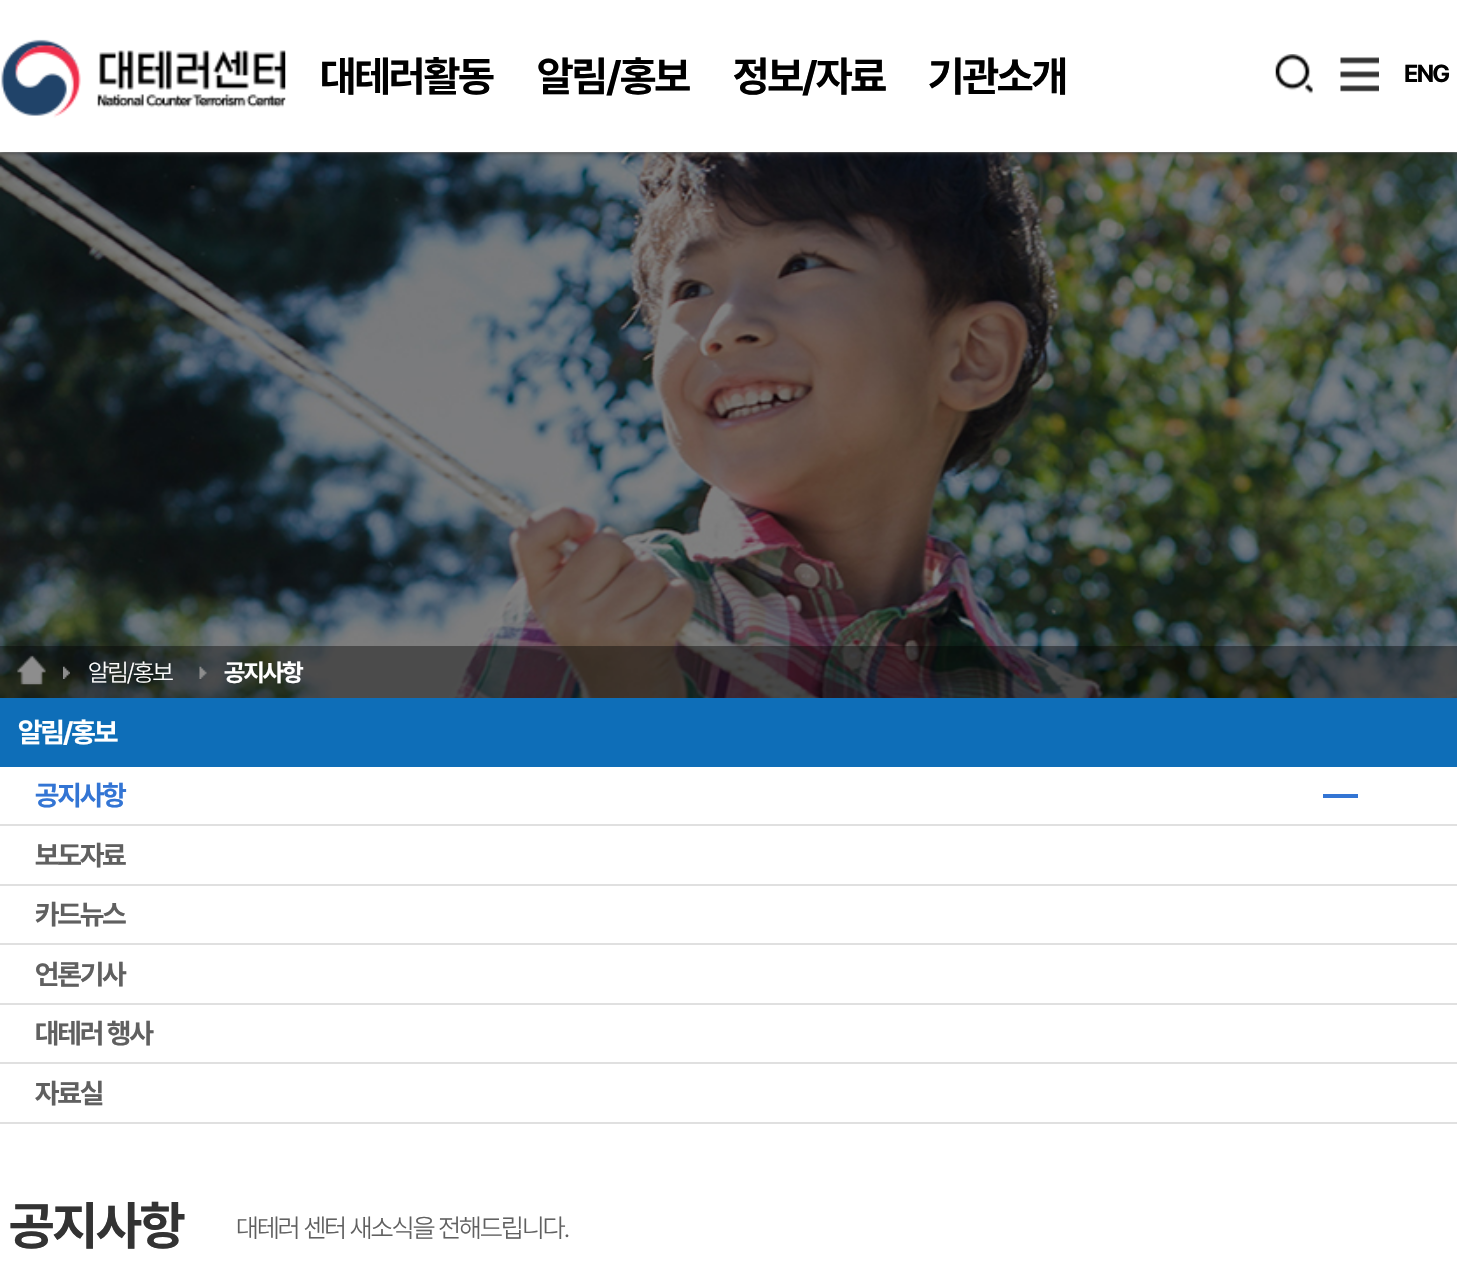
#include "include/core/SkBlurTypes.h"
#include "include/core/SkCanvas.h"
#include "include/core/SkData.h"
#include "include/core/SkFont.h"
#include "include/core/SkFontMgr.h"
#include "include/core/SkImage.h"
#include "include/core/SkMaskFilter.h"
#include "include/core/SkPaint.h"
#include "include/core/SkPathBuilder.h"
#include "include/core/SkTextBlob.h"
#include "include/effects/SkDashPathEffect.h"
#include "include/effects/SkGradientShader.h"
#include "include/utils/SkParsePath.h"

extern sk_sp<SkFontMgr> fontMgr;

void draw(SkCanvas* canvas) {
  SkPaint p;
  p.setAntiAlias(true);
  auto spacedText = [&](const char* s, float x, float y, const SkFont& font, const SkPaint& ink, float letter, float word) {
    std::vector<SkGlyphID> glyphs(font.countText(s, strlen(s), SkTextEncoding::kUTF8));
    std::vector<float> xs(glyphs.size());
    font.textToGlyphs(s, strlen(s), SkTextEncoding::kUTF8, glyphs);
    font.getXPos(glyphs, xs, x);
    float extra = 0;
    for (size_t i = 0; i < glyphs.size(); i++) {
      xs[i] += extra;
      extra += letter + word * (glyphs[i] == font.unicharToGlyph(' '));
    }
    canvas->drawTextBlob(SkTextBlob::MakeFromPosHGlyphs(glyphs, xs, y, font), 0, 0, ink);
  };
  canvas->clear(SK_ColorWHITE);
  canvas->drawImageRect(SkImages::DeferredFromEncodedData(SkData::MakeFromFileName("images/4.png")), SkRect::MakeLTRB(0, 152, 1457, 698), SkSamplingOptions());
  canvas->save();
  canvas->clipRect(SkRect::MakeLTRB(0, 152, 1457, 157));
  p.setColor(SkColorSetRGB(51, 51, 51));
  p.setMaskFilter(SkMaskFilter::MakeBlur(kNormal_SkBlurStyle, 2.5f));
  canvas->drawRect(SkRect::MakeLTRB(0, 0, 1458, 152), p);
  p.setMaskFilter(nullptr);
  canvas->restore();
  canvas->drawImageRect(SkImages::DeferredFromEncodedData(SkData::MakeFromFileName("images/1.png")), SkRect::MakeLTRB(1, 39, 286, 118), SkSamplingOptions());
  canvas->drawImageRect(SkImages::DeferredFromEncodedData(SkData::MakeFromFileName("images/2.png")), SkRect::MakeLTRB(1275, 54, 1313, 94), SkSamplingOptions());
  canvas->drawImageRect(SkImages::DeferredFromEncodedData(SkData::MakeFromFileName("images/3.png")), SkRect::MakeLTRB(1340, 57, 1379, 92), SkSamplingOptions());
  p.setColor(SkColorSetARGB(102, 0, 0, 0));
  canvas->drawRect(SkRect::MakeLTRB(0, 646, 1457, 698), p);
  canvas->drawImageRect(SkImages::DeferredFromEncodedData(SkData::MakeFromFileName("images/5.png")), SkRect::MakeLTRB(17, 655, 46, 685), SkSamplingOptions());
  canvas->drawImageRect(SkImages::DeferredFromEncodedData(SkData::MakeFromFileName("images/6.png")), SkRect::MakeLTRB(63, 666, 70, 679), SkSamplingOptions());
  canvas->drawImageRect(SkImages::DeferredFromEncodedData(SkData::MakeFromFileName("images/7.png")), SkRect::MakeLTRB(199, 666, 207, 679), SkSamplingOptions());
  p.setColor(SkColorSetRGB(14, 110, 184));
  canvas->drawRect(SkRect::MakeLTRB(0, 698, 1457, 767), p);
  p.setColor(SkColorSetRGB(224, 224, 224));
  canvas->drawRect(SkRect::MakeLTRB(0, 824, 1457, 826), p);
  p.setColor(SkColorSetRGB(51, 117, 212));
  canvas->drawRect(SkRect::MakeLTRB(1323, 794, 1358, 798), p);
  p.setColor(SkColorSetRGB(224, 224, 224));
  canvas->drawRect(SkRect::MakeLTRB(0, 884, 1457, 886), p);
  canvas->drawRect(SkRect::MakeLTRB(0, 943, 1457, 945), p);
  canvas->drawRect(SkRect::MakeLTRB(0, 1003, 1457, 1005), p);
  canvas->drawRect(SkRect::MakeLTRB(0, 1062, 1457, 1064), p);
  canvas->drawRect(SkRect::MakeLTRB(0, 1122, 1457, 1124), p);
  SkFont font1(fontMgr->matchFamilyStyle("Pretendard", SkFontStyle::Bold()), 42);
  font1.setSubpixel(true);
  p.setColor(SK_ColorBLACK);
  spacedText("대테러활동", 320, 91, font1, p, -1.75f, 0);
  spacedText("알림/홍보", 537, 91, font1, p, -1.75f, 0);
  spacedText("정보/자료", 733, 91, font1, p, -1.75f, 0);
  spacedText("기관소개", 928, 91, font1, p, -1.75f, 0);
  SkFont font2(fontMgr->matchFamilyStyle("Pretendard", SkFontStyle::Bold()), 24.5f);
  font2.setSubpixel(true);
  spacedText("ENG", 1404, 82, font2, p, -1.75f, 0);
  SkFont font3(fontMgr->matchFamilyStyle("Pretendard", SkFontStyle(300, SkFontStyle::kNormal_Width, SkFontStyle::kUpright_Slant)), 24.5f);
  font3.setSubpixel(true);
  p.setColor(SK_ColorWHITE);
  spacedText("알림/홍보", 88, 681, font3, p, -1.75f, 0);
  spacedText("공지사항", 224, 681, font2, p, -1.75f, 0);
  SkFont font4(fontMgr->matchFamilyStyle("Pretendard", SkFontStyle::Bold()), 28);
  font4.setSubpixel(true);
  spacedText("알림/홍보", 18, 742, font4, p, -1.75f, 0);
  p.setColor(SkColorSetRGB(51, 117, 212));
  spacedText("공지사항", 35, 805, font4, p, -1.75f, 0);
  p.setColor(SkColorSetRGB(96, 96, 96));
  spacedText("보도자료", 35, 865, font4, p, -1.75f, 0);
  spacedText("카드뉴스", 35, 924, font4, p, -1.75f, 0);
  spacedText("언론기사", 35, 984, font4, p, -1.75f, 0);
  spacedText("대테러 행사", 35, 1043, font4, p, -1.75f, 0);
  spacedText("자료실", 35, 1103, font4, p, -1.75f, 0);
  SkFont font5(fontMgr->matchFamilyStyle("Pretendard", SkFontStyle::Bold()), 52.5f);
  font5.setSubpixel(true);
  p.setColor(SkColorSetRGB(51, 51, 51));
  spacedText("공지사항", 9, 1244, font5, p, -1.75f, 0);
  SkFont font6(fontMgr->matchFamilyStyle("Pretendard", SkFontStyle(300, SkFontStyle::kNormal_Width, SkFontStyle::kUpright_Slant)), 26.25f);
  font6.setSubpixel(true);
  p.setColor(SkColorSetRGB(96, 96, 96));
  spacedText("대테러 센터 새소식을 전해드립니다.", 236, 1237, font6, p, -1.75f, 0);
}
